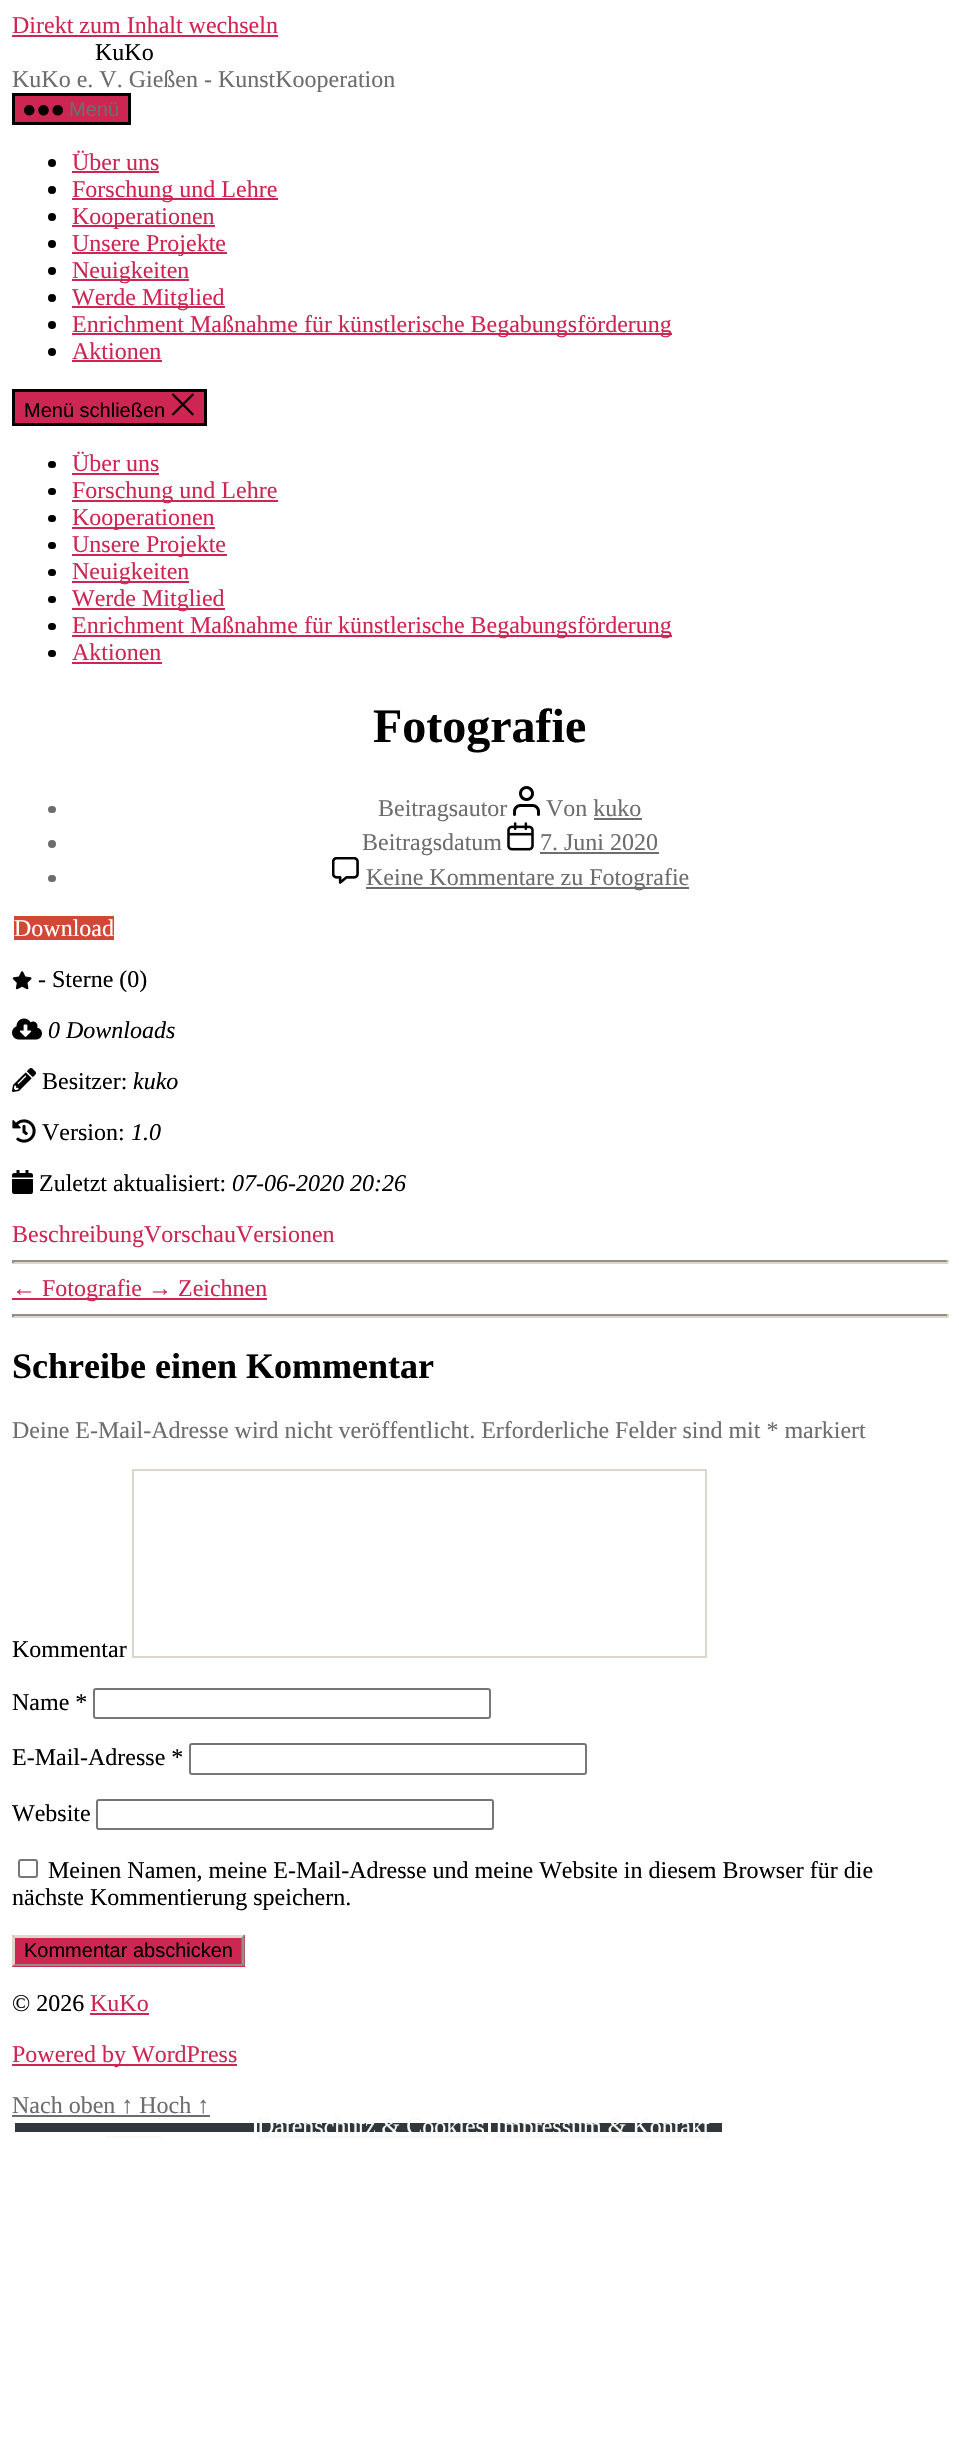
#include "include/core/SkBlurTypes.h"
#include "include/core/SkCanvas.h"
#include "include/core/SkData.h"
#include "include/core/SkFont.h"
#include "include/core/SkFontMgr.h"
#include "include/core/SkImage.h"
#include "include/core/SkMaskFilter.h"
#include "include/core/SkPaint.h"
#include "include/core/SkPathBuilder.h"
#include "include/core/SkTextBlob.h"
#include "include/effects/SkDashPathEffect.h"
#include "include/effects/SkGradientShader.h"
#include "include/utils/SkParsePath.h"

extern sk_sp<SkFontMgr> fontMgr;

void draw(SkCanvas* canvas) {
  SkPaint p;
  p.setAntiAlias(true);
  canvas->clear(SK_ColorWHITE);
  p.setColor(SkColorSetRGB(205, 38, 83));
  canvas->drawRect(SkRect::MakeLTRB(12, 35, 278, 37), p);
  canvas->drawRect(SkRect::MakeLTRB(13.5f, 94.5f, 129.5f, 123.5f), p);
  p.setStyle(SkPaint::kStroke_Style);
  p.setStrokeWidth(3);
  p.setColor(SK_ColorBLACK);
  canvas->drawRect(SkRect::MakeLTRB(13.5f, 94.5f, 129.5f, 123.5f), p);
  canvas->drawImageRect(SkImages::DeferredFromEncodedData(SkData::MakeFromFileName("images/1.png")), SkRect::MakeLTRB(24, 105, 63, 116), SkSamplingOptions());
  p.setStyle(SkPaint::kFill_Style);
  canvas->drawCircle(52, 163, 4, p);
  p.setColor(SkColorSetRGB(205, 38, 83));
  canvas->drawRect(SkRect::MakeLTRB(72, 171, 159, 173), p);
  p.setColor(SK_ColorBLACK);
  canvas->drawCircle(52, 190, 4, p);
  p.setColor(SkColorSetRGB(205, 38, 83));
  canvas->drawRect(SkRect::MakeLTRB(72, 198, 278, 200), p);
  p.setColor(SK_ColorBLACK);
  canvas->drawCircle(52, 217, 4, p);
  p.setColor(SkColorSetRGB(205, 38, 83));
  canvas->drawRect(SkRect::MakeLTRB(72, 225, 215, 227), p);
  p.setColor(SK_ColorBLACK);
  canvas->drawCircle(52, 244, 4, p);
  p.setColor(SkColorSetRGB(205, 38, 83));
  canvas->drawRect(SkRect::MakeLTRB(72, 252, 227, 254), p);
  p.setColor(SK_ColorBLACK);
  canvas->drawCircle(52, 271, 4, p);
  p.setColor(SkColorSetRGB(205, 38, 83));
  canvas->drawRect(SkRect::MakeLTRB(72, 279, 189, 281), p);
  p.setColor(SK_ColorBLACK);
  canvas->drawCircle(52, 298, 4, p);
  p.setColor(SkColorSetRGB(205, 38, 83));
  canvas->drawRect(SkRect::MakeLTRB(72, 306, 225, 308), p);
  p.setColor(SK_ColorBLACK);
  canvas->drawCircle(52, 325, 4, p);
  p.setColor(SkColorSetRGB(205, 38, 83));
  canvas->drawRect(SkRect::MakeLTRB(72, 333, 672, 335), p);
  p.setColor(SK_ColorBLACK);
  canvas->drawCircle(52, 352, 4, p);
  p.setColor(SkColorSetRGB(205, 38, 83));
  canvas->drawRect(SkRect::MakeLTRB(72, 360, 162, 362), p);
  canvas->drawRect(SkRect::MakeLTRB(13.5f, 390.5f, 205.5f, 424.5f), p);
  p.setStyle(SkPaint::kStroke_Style);
  p.setColor(SK_ColorBLACK);
  canvas->drawRect(SkRect::MakeLTRB(13.5f, 390.5f, 205.5f, 424.5f), p);
  canvas->drawImageRect(SkImages::DeferredFromEncodedData(SkData::MakeFromFileName("images/2.png")), SkRect::MakeLTRB(171, 393, 194, 416), SkSamplingOptions());
  p.setStyle(SkPaint::kFill_Style);
  canvas->drawRoundRect(SkRect::MakeLTRB(48, 461, 56, 468), 3.5f, 3.5f, p);
  p.setColor(SkColorSetRGB(205, 38, 83));
  canvas->drawRect(SkRect::MakeLTRB(72, 473, 159, 475), p);
  p.setColor(SK_ColorBLACK);
  canvas->drawRoundRect(SkRect::MakeLTRB(48, 488, 56, 495), 3.5f, 3.5f, p);
  p.setColor(SkColorSetRGB(205, 38, 83));
  canvas->drawRect(SkRect::MakeLTRB(72, 500, 278, 502), p);
  p.setColor(SK_ColorBLACK);
  canvas->drawRoundRect(SkRect::MakeLTRB(48, 515, 56, 522), 3.5f, 3.5f, p);
  p.setColor(SkColorSetRGB(205, 38, 83));
  canvas->drawRect(SkRect::MakeLTRB(72, 527, 215, 529), p);
  p.setColor(SK_ColorBLACK);
  canvas->drawRoundRect(SkRect::MakeLTRB(48, 542, 56, 549), 3.5f, 3.5f, p);
  p.setColor(SkColorSetRGB(205, 38, 83));
  canvas->drawRect(SkRect::MakeLTRB(72, 554, 227, 556), p);
  p.setColor(SK_ColorBLACK);
  canvas->drawRoundRect(SkRect::MakeLTRB(48, 569, 56, 576), 3.5f, 3.5f, p);
  p.setColor(SkColorSetRGB(205, 38, 83));
  canvas->drawRect(SkRect::MakeLTRB(72, 581, 189, 583), p);
  p.setColor(SK_ColorBLACK);
  canvas->drawRoundRect(SkRect::MakeLTRB(48, 596, 56, 603), 3.5f, 3.5f, p);
  p.setColor(SkColorSetRGB(205, 38, 83));
  canvas->drawRect(SkRect::MakeLTRB(72, 608, 225, 610), p);
  p.setColor(SK_ColorBLACK);
  canvas->drawRoundRect(SkRect::MakeLTRB(48, 623, 56, 630), 3.5f, 3.5f, p);
  p.setColor(SkColorSetRGB(205, 38, 83));
  canvas->drawRect(SkRect::MakeLTRB(72, 635, 672, 637), p);
  p.setColor(SK_ColorBLACK);
  canvas->drawRoundRect(SkRect::MakeLTRB(48, 650, 56, 657), 3.5f, 3.5f, p);
  p.setColor(SkColorSetRGB(205, 38, 83));
  canvas->drawRect(SkRect::MakeLTRB(72, 662, 162, 664), p);
  p.setColor(SkColorSetRGB(109, 109, 109));
  canvas->drawRoundRect(SkRect::MakeLTRB(48, 806, 56, 813), 3.5f, 3.5f, p);
  canvas->drawImageRect(SkImages::DeferredFromEncodedData(SkData::MakeFromFileName("images/3.png")), SkRect::MakeLTRB(513, 786, 540, 816), SkSamplingOptions());
  canvas->drawRect(SkRect::MakeLTRB(594, 818, 642, 820), p);
  canvas->drawCircle(52, 844, 4, p);
  canvas->drawImageRect(SkImages::DeferredFromEncodedData(SkData::MakeFromFileName("images/4.png")), SkRect::MakeLTRB(507, 822, 534, 851), SkSamplingOptions());
  canvas->drawRect(SkRect::MakeLTRB(540, 852, 659, 854), p);
  canvas->drawRoundRect(SkRect::MakeLTRB(48, 875, 56, 882), 3.5f, 3.5f, p);
  canvas->drawImageRect(SkImages::DeferredFromEncodedData(SkData::MakeFromFileName("images/5.png")), SkRect::MakeLTRB(332, 857, 359, 884), SkSamplingOptions());
  canvas->drawRect(SkRect::MakeLTRB(366, 887, 689, 889), p);
  p.setColor(SkColorSetRGB(209, 72, 54));
  canvas->drawRect(SkRect::MakeLTRB(14, 916, 114, 940), p);
  canvas->drawImageRect(SkImages::DeferredFromEncodedData(SkData::MakeFromFileName("images/6.png")), SkRect::MakeLTRB(12, 971, 32, 990), SkSamplingOptions());
  canvas->drawImageRect(SkImages::DeferredFromEncodedData(SkData::MakeFromFileName("images/7.png")), SkRect::MakeLTRB(12, 1018, 42, 1040), SkSamplingOptions());
  canvas->drawImageRect(SkImages::DeferredFromEncodedData(SkData::MakeFromFileName("images/8.png")), SkRect::MakeLTRB(12, 1068, 36, 1092), SkSamplingOptions());
  canvas->drawImageRect(SkImages::DeferredFromEncodedData(SkData::MakeFromFileName("images/9.png")), SkRect::MakeLTRB(12, 1119, 36, 1143), SkSamplingOptions());
  canvas->drawImageRect(SkImages::DeferredFromEncodedData(SkData::MakeFromFileName("images/10.png")), SkRect::MakeLTRB(12, 1170, 33, 1194), SkSamplingOptions());
  p.setColor(SkColorSetRGB(147, 143, 135));
  canvas->drawRect(SkRect::MakeLTRB(12, 1260, 948, 1262), p);
  p.setColor(SkColorSetRGB(220, 215, 202));
  canvas->drawRect(SkRect::MakeLTRB(947, 1260, 949, 1263), p);
  canvas->drawRect(SkRect::MakeLTRB(12, 1262, 948, 1264), p);
  p.setColor(SkColorSetRGB(147, 143, 135));
  canvas->drawRect(SkRect::MakeLTRB(12, 1260, 14, 1263), p);
  p.setColor(SkColorSetRGB(205, 38, 83));
  canvas->drawRect(SkRect::MakeLTRB(12, 1298, 267, 1300), p);
  p.setColor(SkColorSetRGB(147, 143, 135));
  canvas->drawRect(SkRect::MakeLTRB(12, 1314, 948, 1316), p);
  p.setColor(SkColorSetRGB(220, 215, 202));
  canvas->drawRect(SkRect::MakeLTRB(947, 1314, 949, 1317), p);
  canvas->drawRect(SkRect::MakeLTRB(12, 1316, 948, 1318), p);
  p.setColor(SkColorSetRGB(147, 143, 135));
  canvas->drawRect(SkRect::MakeLTRB(12, 1314, 14, 1317), p);
  p.setStyle(SkPaint::kStroke_Style);
  p.setStrokeWidth(2);
  p.setColor(SkColorSetRGB(220, 215, 202));
  canvas->drawRect(SkRect::MakeLTRB(133, 1470, 706, 1657), p);
  p.setColor(SkColorSetRGB(118, 118, 118));
  canvas->drawRoundRect(SkRect::MakeLTRB(94, 1689, 490, 1718), 2, 2, p);
  canvas->drawRoundRect(SkRect::MakeLTRB(190, 1744, 586, 1774), 2, 2, p);
  canvas->drawRoundRect(SkRect::MakeLTRB(97, 1800, 493, 1829), 2, 2, p);
  canvas->drawRoundRect(SkRect::MakeLTRB(19, 1860, 37, 1877), 2, 2, p);
  p.setStyle(SkPaint::kFill_Style);
  p.setColor(SkColorSetRGB(205, 38, 83));
  canvas->drawRect(SkRect::MakeLTRB(12, 1935, 245, 1967), p);
  p.setColor(SkColorSetRGB(220, 215, 202));
  canvas->drawPath(SkPathBuilder().moveTo(12, 1935).lineTo(244, 1935).lineTo(242, 1938).lineTo(15, 1938).close().detach(), p);
  p.setColor(SkColorSetRGB(147, 143, 135));
  canvas->drawPath(SkPathBuilder().moveTo(244.5f, 1935).lineTo(244.5f, 1966.5f).lineTo(241.5f, 1963.5f).lineTo(241.5f, 1938).close().detach(), p);
  canvas->drawPath(SkPathBuilder().moveTo(244, 1966).lineTo(12, 1966).lineTo(15, 1964).lineTo(242, 1964).close().detach(), p);
  p.setColor(SkColorSetRGB(220, 215, 202));
  canvas->drawPath(SkPathBuilder().moveTo(12, 1966.5f).lineTo(12, 1935).lineTo(15, 1938).lineTo(15, 1963.5f).close().detach(), p);
  p.setColor(SkColorSetRGB(205, 38, 83));
  canvas->drawRect(SkRect::MakeLTRB(90, 2013, 149, 2015), p);
  canvas->drawRect(SkRect::MakeLTRB(12, 2064, 237, 2066), p);
  p.setColor(SkColorSetRGB(109, 109, 109));
  canvas->drawRect(SkRect::MakeLTRB(12, 2115, 210, 2117), p);
  p.setColor(SkColorSetRGB(50, 55, 60));
  canvas->drawRect(SkRect::MakeLTRB(15, 2123, 254, 2132), p);
  p.setColor(SkColorSetRGB(249, 249, 249));
  canvas->drawRect(SkRect::MakeLTRB(105, 2136, 162, 2138), p);
  p.setColor(SkColorSetRGB(50, 55, 60));
  canvas->drawRect(SkRect::MakeLTRB(257, 2123, 488, 2132), p);
  p.setColor(SkColorSetRGB(249, 249, 249));
  canvas->drawRect(SkRect::MakeLTRB(258, 2136, 486, 2138), p);
  p.setColor(SkColorSetRGB(50, 55, 60));
  canvas->drawRect(SkRect::MakeLTRB(491, 2123, 722, 2132), p);
  p.setColor(SkColorSetRGB(249, 249, 249));
  canvas->drawRect(SkRect::MakeLTRB(495, 2136, 710, 2138), p);
  SkFont font1(fontMgr->matchFamilyStyle("Liberation Serif", SkFontStyle::Normal()), 24);
  font1.setSubpixel(true);
  p.setColor(SkColorSetRGB(205, 38, 83));
  canvas->drawString("Direkt zum Inhalt wechseln", 12, 33, font1, p);
  p.setColor(SK_ColorBLACK);
  canvas->drawString("KuKo", 95, 60, font1, p);
  p.setColor(SkColorSetRGB(109, 109, 109));
  canvas->drawString("KuKo e. V. Gießen - KunstKooperation", 12, 87, font1, p);
  SkFont font2(fontMgr->matchFamilyStyle("Liberation Sans", SkFontStyle::Normal()), 20);
  font2.setSubpixel(true);
  canvas->drawString("Menü", 69, 116, font2, p);
  p.setColor(SkColorSetRGB(205, 38, 83));
  canvas->drawString("Über uns", 72, 170, font1, p);
  canvas->drawString("Forschung und Lehre", 72, 197, font1, p);
  canvas->drawString("Kooperationen", 72, 224, font1, p);
  canvas->drawString("Unsere Projekte", 72, 251, font1, p);
  canvas->drawString("Neuigkeiten", 72, 278, font1, p);
  canvas->drawString("Werde Mitglied", 72, 305, font1, p);
  canvas->drawString("Enrichment Maßnahme für künstlerische Begabungsförderung", 72, 332, font1, p);
  canvas->drawString("Aktionen", 72, 359, font1, p);
  p.setColor(SK_ColorBLACK);
  canvas->drawString("Menü schließen", 24, 417, font2, p);
  p.setColor(SkColorSetRGB(205, 38, 83));
  canvas->drawString("Über uns", 72, 471, font1, p);
  canvas->drawString("Forschung und Lehre", 72, 498, font1, p);
  canvas->drawString("Kooperationen", 72, 525, font1, p);
  canvas->drawString("Unsere Projekte", 72, 552, font1, p);
  canvas->drawString("Neuigkeiten", 72, 579, font1, p);
  canvas->drawString("Werde Mitglied", 72, 606, font1, p);
  canvas->drawString("Enrichment Maßnahme für künstlerische Begabungsförderung", 72, 633, font1, p);
  canvas->drawString("Aktionen", 72, 660, font1, p);
  SkFont font3(fontMgr->matchFamilyStyle("Liberation Serif", SkFontStyle::Bold()), 48);
  font3.setSubpixel(true);
  p.setColor(SK_ColorBLACK);
  canvas->drawString("Fotografie", 373, 742, font3, p);
  p.setColor(SkColorSetRGB(109, 109, 109));
  canvas->drawString("Beitragsautor", 378, 816, font1, p);
  canvas->drawString("Von kuko", 546, 816, font1, p);
  canvas->drawString("Beitragsdatum", 362, 850, font1, p);
  canvas->drawString("7. Juni 2020", 540, 850, font1, p);
  canvas->drawString("Keine Kommentare zu Fotografie", 366, 885, font1, p);
  p.setColor(SK_ColorWHITE);
  canvas->drawString("Download", 14, 936, font1, p);
  p.setColor(SK_ColorBLACK);
  canvas->drawString("- Sterne (0)", 38, 987, font1, p);
  SkFont font4(fontMgr->matchFamilyStyle("Liberation Serif", SkFontStyle::Italic()), 24);
  font4.setSubpixel(true);
  canvas->drawString("0 Downloads", 48, 1038, font4, p);
  canvas->drawString("Besitzer:", 42, 1089, font1, p);
  canvas->drawString("kuko", 133, 1089, font4, p);
  canvas->drawString("Version:", 42, 1140, font1, p);
  canvas->drawString("1.0", 131, 1140, font4, p);
  canvas->drawString("Zuletzt aktualisiert:", 39, 1191, font1, p);
  canvas->drawString("07-06-2020 20:26", 232, 1191, font4, p);
  p.setColor(SkColorSetRGB(205, 38, 83));
  canvas->drawString("BeschreibungVorschauVersionen", 12, 1242, font1, p);
  canvas->drawString("← Fotografie → Zeichnen", 12, 1296, font1, p);
  SkFont font5(fontMgr->matchFamilyStyle("Liberation Serif", SkFontStyle::Bold()), 36);
  font5.setSubpixel(true);
  p.setColor(SK_ColorBLACK);
  canvas->drawString("Schreibe einen Kommentar", 12, 1378, font5, p);
  p.setColor(SkColorSetRGB(109, 109, 109));
  canvas->drawString("Deine E-Mail-Adresse wird nicht veröffentlicht. Erforderliche Felder sind mit * markiert", 12, 1438, font1, p);
  p.setColor(SK_ColorBLACK);
  canvas->drawString("Kommentar", 12, 1657, font1, p);
  canvas->drawString("Name *", 12, 1710, font1, p);
  canvas->drawString("E-Mail-Adresse *", 12, 1765, font1, p);
  canvas->drawString("Website", 12, 1821, font1, p);
  canvas->drawString("Meinen Namen, meine E-Mail-Adresse und meine Website in diesem Browser für die", 48, 1878, font1, p);
  canvas->drawString("nächste Kommentierung speichern.", 12, 1905, font1, p);
  canvas->drawString("Kommentar abschicken", 24, 1957, font2, p);
  canvas->drawString("© 2026", 12, 2011, font1, p);
  p.setColor(SkColorSetRGB(205, 38, 83));
  canvas->drawString("KuKo", 90, 2011, font1, p);
  canvas->drawString("Powered by WordPress", 12, 2062, font1, p);
  p.setColor(SkColorSetRGB(109, 109, 109));
  canvas->drawString("Nach oben ↑ Hoch ↑", 12, 2113, font1, p);
  p.setColor(SkColorSetRGB(249, 249, 249));
  canvas->drawString("Datenschutz & Cookies", 257, 2134, font1, p);
  canvas->drawString("Impressum & Kontakt", 495, 2134, font1, p);
}
